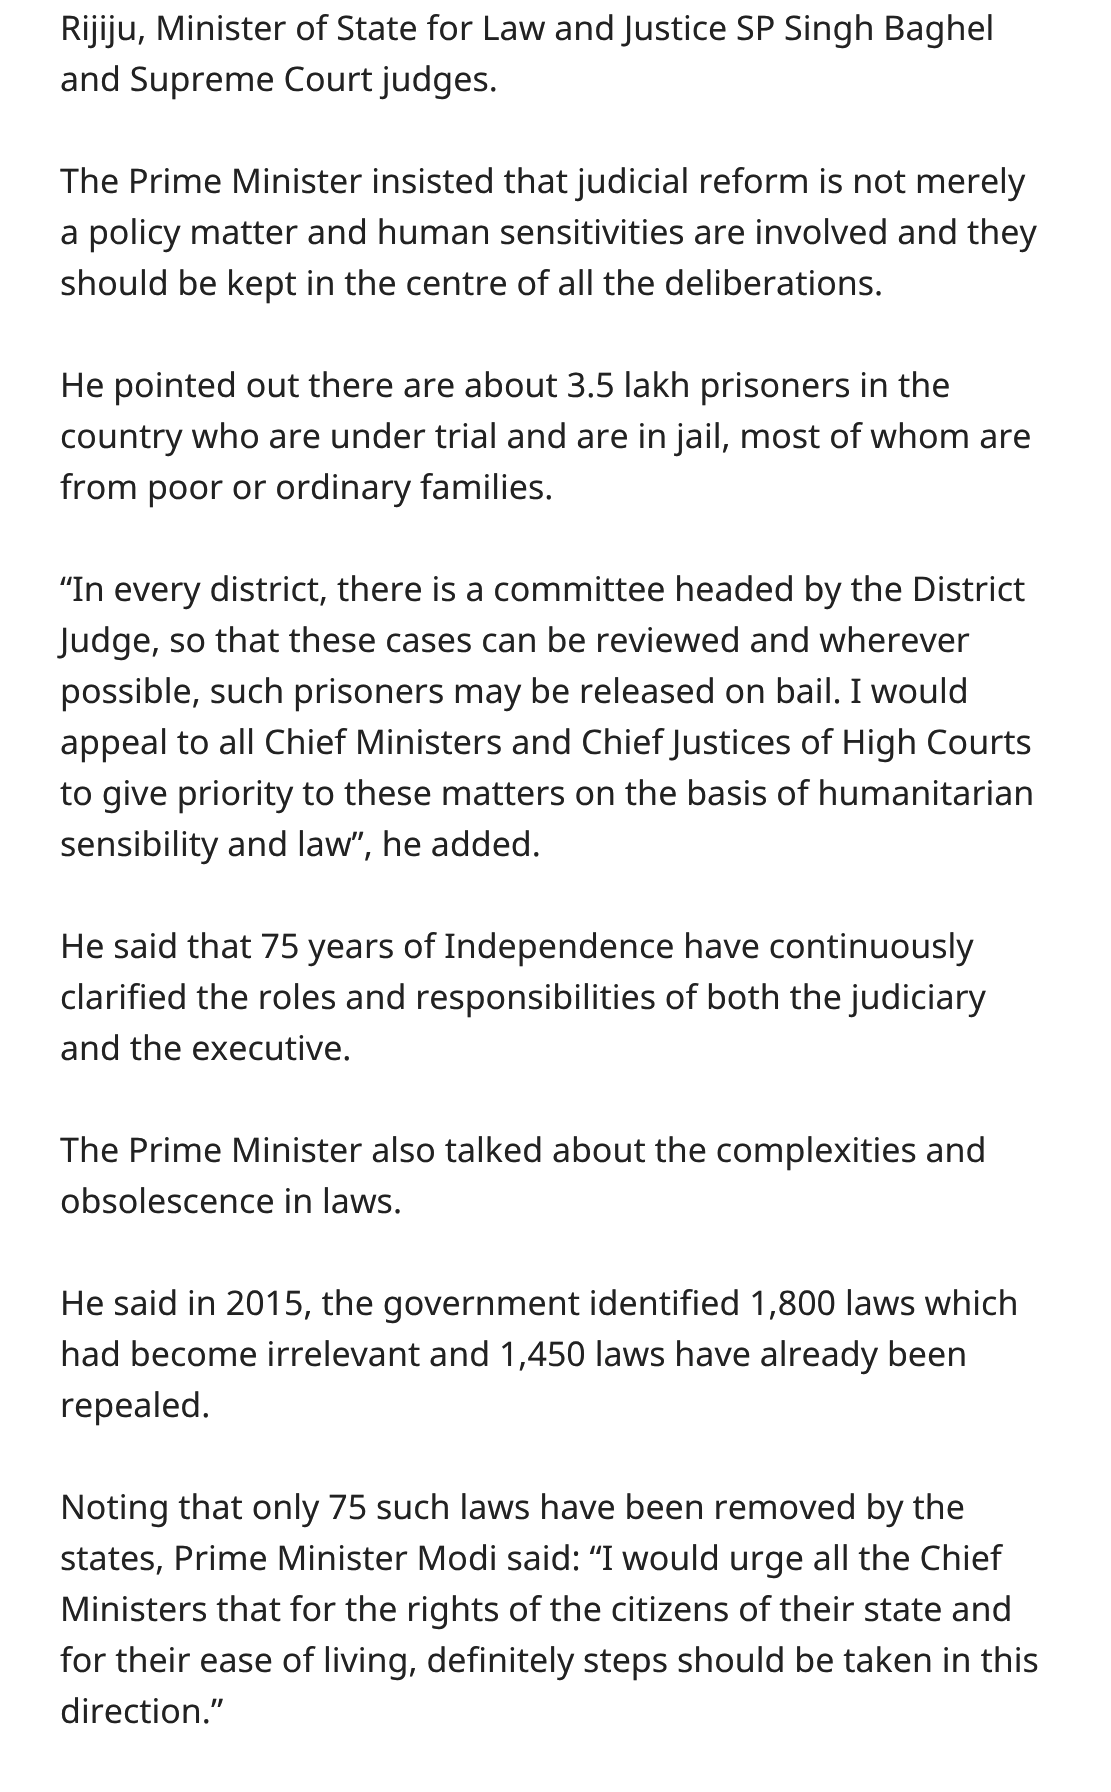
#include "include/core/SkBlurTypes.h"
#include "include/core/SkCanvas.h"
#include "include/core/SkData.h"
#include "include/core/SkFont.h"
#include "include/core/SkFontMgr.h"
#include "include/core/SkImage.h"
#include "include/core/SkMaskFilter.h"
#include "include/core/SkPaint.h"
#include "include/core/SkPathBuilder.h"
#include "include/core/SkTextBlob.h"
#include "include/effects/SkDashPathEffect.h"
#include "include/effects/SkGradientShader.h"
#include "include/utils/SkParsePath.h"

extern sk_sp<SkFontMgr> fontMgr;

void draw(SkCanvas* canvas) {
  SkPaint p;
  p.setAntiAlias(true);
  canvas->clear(SK_ColorWHITE);
  SkFont font1(fontMgr->matchFamilyStyle("Noto Sans", SkFontStyle::Normal()), 34);
  font1.setSubpixel(true);
  p.setColor(SkColorSetRGB(34, 34, 34));
  canvas->drawString("Rijiju, Minister of State for Law and Justice SP Singh Baghel", 60, 40, font1, p);
  canvas->drawString("and Supreme Court judges.", 60, 91, font1, p);
  canvas->drawString("The Prime Minister insisted that judicial reform is not merely", 60, 193, font1, p);
  canvas->drawString("a policy matter and human sensitivities are involved and they", 60, 244, font1, p);
  canvas->drawString("should be kept in the centre of all the deliberations.", 60, 295, font1, p);
  canvas->drawString("He pointed out there are about 3.5 lakh prisoners in the", 60, 397, font1, p);
  canvas->drawString("country who are under trial and are in jail, most of whom are", 60, 448, font1, p);
  canvas->drawString("from poor or ordinary families.", 60, 499, font1, p);
  canvas->drawString("“In every district, there is a committee headed by the District", 60, 601, font1, p);
  canvas->drawString("Judge, so that these cases can be reviewed and wherever", 60, 652, font1, p);
  canvas->drawString("possible, such prisoners may be released on bail. I would", 60, 703, font1, p);
  canvas->drawString("appeal to all Chief Ministers and Chief Justices of High Courts", 60, 754, font1, p);
  canvas->drawString("to give priority to these matters on the basis of humanitarian", 60, 805, font1, p);
  canvas->drawString("sensibility and law”, he added.", 60, 856, font1, p);
  canvas->drawString("He said that 75 years of Independence have continuously", 60, 958, font1, p);
  canvas->drawString("clarified the roles and responsibilities of both the judiciary", 60, 1009, font1, p);
  canvas->drawString("and the executive.", 60, 1060, font1, p);
  canvas->drawString("The Prime Minister also talked about the complexities and", 60, 1162, font1, p);
  canvas->drawString("obsolescence in laws.", 60, 1213, font1, p);
  canvas->drawString("He said in 2015, the government identified 1,800 laws which", 60, 1315, font1, p);
  canvas->drawString("had become irrelevant and 1,450 laws have already been", 60, 1366, font1, p);
  canvas->drawString("repealed.", 60, 1417, font1, p);
  canvas->drawString("Noting that only 75 such laws have been removed by the", 60, 1519, font1, p);
  canvas->drawString("states, Prime Minister Modi said: “I would urge all the Chief", 60, 1570, font1, p);
  canvas->drawString("Ministers that for the rights of the citizens of their state and", 60, 1621, font1, p);
  canvas->drawString("for their ease of living, definitely steps should be taken in this", 60, 1672, font1, p);
  canvas->drawString("direction.”", 60, 1723, font1, p);
}
